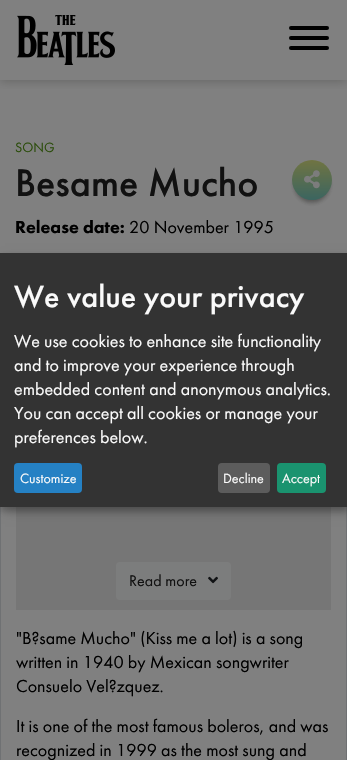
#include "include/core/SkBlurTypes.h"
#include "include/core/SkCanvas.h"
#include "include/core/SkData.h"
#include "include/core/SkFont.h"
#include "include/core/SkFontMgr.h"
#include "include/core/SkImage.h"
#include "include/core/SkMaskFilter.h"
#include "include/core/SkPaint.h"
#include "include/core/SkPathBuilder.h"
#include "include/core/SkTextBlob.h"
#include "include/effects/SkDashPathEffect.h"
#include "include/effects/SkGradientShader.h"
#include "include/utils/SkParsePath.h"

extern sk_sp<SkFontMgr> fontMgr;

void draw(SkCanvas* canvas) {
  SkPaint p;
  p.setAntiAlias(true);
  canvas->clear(SkColorSetRGB(128, 128, 128));
  canvas->save();
  canvas->clipRect(SkRect::MakeLTRB(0, 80, 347, 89));
  p.setColor(SkColorSetARGB(84, 42, 41, 40));
  p.setMaskFilter(SkMaskFilter::MakeBlur(kNormal_SkBlurStyle, 5));
  canvas->drawRect(SkRect::MakeLTRB(0, 1, 347, 81), p);
  p.setMaskFilter(nullptr);
  canvas->restore();
  canvas->drawImageRect(SkImages::DeferredFromEncodedData(SkData::MakeFromFileName("images/1.png")), SkRect::MakeLTRB(17, 15, 115, 65), SkSamplingOptions());
  p.setColor(SK_ColorBLACK);
  canvas->drawRoundRect(SkRect::MakeLTRB(289, 36, 329, 40), 2, 2, p);
  canvas->drawRoundRect(SkRect::MakeLTRB(289, 26, 329, 30), 2, 2, p);
  canvas->drawRoundRect(SkRect::MakeLTRB(289, 46, 329, 50), 2, 2, p);
  p.setColor(SkColorSetRGB(111, 113, 115));
  canvas->drawRect(SkRect::MakeLTRB(346, 507, 347, 760), p);
  canvas->drawRect(SkRect::MakeLTRB(0, 507, 1, 760), p);
  p.setColor(SkColorSetRGB(118, 118, 118));
  canvas->drawRect(SkRect::MakeLTRB(16, 507, 331, 610), p);
  p.setColor(SkColorSetRGB(124, 125, 125));
  canvas->drawRoundRect(SkRect::MakeLTRB(116, 562, 231, 600), 4, 4, p);
  canvas->drawImageRect(SkImages::DeferredFromEncodedData(SkData::MakeFromFileName("images/2.png")), SkRect::MakeLTRB(208, 576, 218, 584), SkSamplingOptions());
  p.setColor(SkColorSetARGB(84, 42, 41, 40));
  p.setMaskFilter(SkMaskFilter::MakeBlur(kNormal_SkBlurStyle, 2.5f));
  canvas->drawRoundRect(SkRect::MakeLTRB(295, 168, 329, 202), 17, 17, p);
  p.setMaskFilter(nullptr);
  p.setMaskFilter(SkMaskFilter::MakeBlur(kNormal_SkBlurStyle, 2.5f));
  canvas->drawRoundRect(SkRect::MakeLTRB(295, 168, 329, 202), 17, 17, p);
  p.setMaskFilter(nullptr);
  {
    const SkColor colors[] = {SkColorSetRGB(59, 101, 96), SkColorSetRGB(112, 116, 66)};
    const float stops[] = {0, 1};
    const SkPoint ends[] = {{312, 200}, {312, 160}};
    p.setShader(SkGradientShader::MakeLinear(ends, colors, stops, 2, SkTileMode::kClamp));
    p.setAlpha(255);
  }
  canvas->drawCircle(312, 180, 20, p);
  canvas->drawImageRect(SkImages::DeferredFromEncodedData(SkData::MakeFromFileName("images/3.png")), SkRect::MakeLTRB(304, 170, 320, 189), SkSamplingOptions());
  p.setShader(nullptr);
  p.setColor(SkColorSetARGB(48, 0, 0, 0));
  p.setMaskFilter(SkMaskFilter::MakeBlur(kNormal_SkBlurStyle, 5));
  canvas->drawRect(SkRect::MakeLTRB(5, 258, 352, 512), p);
  p.setMaskFilter(nullptr);
  p.setColor(SkColorSetARGB(51, 0, 0, 0));
  p.setMaskFilter(SkMaskFilter::MakeBlur(kNormal_SkBlurStyle, 3));
  canvas->drawRect(SkRect::MakeLTRB(0, 257, 347, 511), p);
  p.setMaskFilter(nullptr);
  p.setColor(SkColorSetRGB(51, 51, 51));
  canvas->drawRect(SkRect::MakeLTRB(0, 253, 347, 507), p);
  p.setColor(SkColorSetRGB(37, 129, 196));
  canvas->drawRoundRect(SkRect::MakeLTRB(14, 463, 82, 493), 4, 4, p);
  p.setColor(SkColorSetRGB(92, 92, 92));
  canvas->drawRoundRect(SkRect::MakeLTRB(218, 463, 270, 493), 4, 4, p);
  p.setColor(SkColorSetRGB(26, 147, 111));
  canvas->drawRoundRect(SkRect::MakeLTRB(277, 463, 326, 493), 4, 4, p);
  SkFont font1(fontMgr->matchFamilyStyle("Futura PT", SkFontStyle::Normal()), 14);
  font1.setSubpixel(true);
  p.setColor(SkColorSetRGB(44, 77, 12));
  canvas->drawString("SONG", 15, 152, font1, p);
  SkFont font2(fontMgr->matchFamilyStyle("Futura PT", SkFontStyle(500, SkFontStyle::kNormal_Width, SkFontStyle::kUpright_Slant)), 40);
  font2.setSubpixel(true);
  p.setColor(SkColorSetRGB(17, 17, 17));
  canvas->drawString("Besame Mucho", 15, 196, font2, p);
  SkFont font3(fontMgr->matchFamilyStyle("Futura PT", SkFontStyle(900, SkFontStyle::kNormal_Width, SkFontStyle::kUpright_Slant)), 18);
  font3.setSubpixel(true);
  p.setColor(SK_ColorBLACK);
  canvas->drawString("Release date:", 15, 233, font3, p);
  SkFont font4(fontMgr->matchFamilyStyle("Futura PT", SkFontStyle::Normal()), 18);
  font4.setSubpixel(true);
  canvas->drawString("20 November 1995", 129, 233, font4, p);
  SkFont font5(fontMgr->matchFamilyStyle("Futura PT", SkFontStyle::Normal()), 16);
  font5.setSubpixel(true);
  p.setColor(SkColorSetRGB(17, 17, 17));
  canvas->drawString("Read more", 129, 586, font5, p);
  p.setColor(SK_ColorBLACK);
  canvas->drawString("\"B?same Mucho\" (Kiss me a lot) is a song", 16, 644, font4, p);
  canvas->drawString("written in 1940 by Mexican songwriter", 16, 668, font4, p);
  canvas->drawString("Consuelo Vel?zquez.", 16, 692, font4, p);
  canvas->drawString("It is one of the most famous boleros, and was", 16, 732, font4, p);
  canvas->drawString("recognized in 1999 as the most sung and", 16, 756, font4, p);
  SkFont font6(fontMgr->matchFamilyStyle("Futura PT", SkFontStyle(500, SkFontStyle::kNormal_Width, SkFontStyle::kUpright_Slant)), 32);
  font6.setSubpixel(true);
  p.setColor(SkColorSetRGB(250, 250, 250));
  canvas->drawString("We value your privacy", 14, 307, font6, p);
  canvas->drawString("We use cookies to enhance site functionality", 14, 347, font4, p);
  canvas->drawString("and to improve your experience through", 14, 371, font4, p);
  canvas->drawString("embedded content and anonymous analytics.", 14, 395, font4, p);
  canvas->drawString("You can accept all cookies or manage your", 14, 419, font4, p);
  canvas->drawString("preferences below.", 14, 443, font4, p);
  canvas->drawString("Customize", 20, 483, font1, p);
  canvas->drawString("Decline", 223, 483, font1, p);
  canvas->drawString("Accept", 282, 483, font1, p);
}
